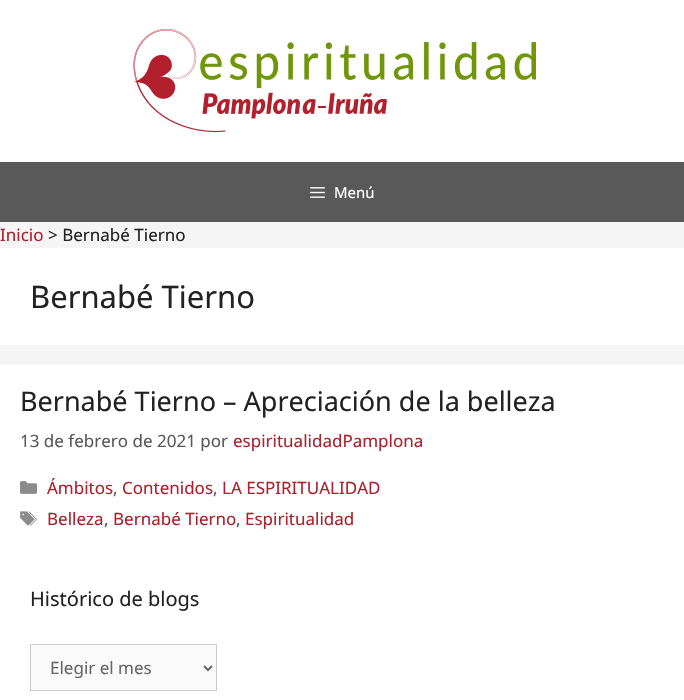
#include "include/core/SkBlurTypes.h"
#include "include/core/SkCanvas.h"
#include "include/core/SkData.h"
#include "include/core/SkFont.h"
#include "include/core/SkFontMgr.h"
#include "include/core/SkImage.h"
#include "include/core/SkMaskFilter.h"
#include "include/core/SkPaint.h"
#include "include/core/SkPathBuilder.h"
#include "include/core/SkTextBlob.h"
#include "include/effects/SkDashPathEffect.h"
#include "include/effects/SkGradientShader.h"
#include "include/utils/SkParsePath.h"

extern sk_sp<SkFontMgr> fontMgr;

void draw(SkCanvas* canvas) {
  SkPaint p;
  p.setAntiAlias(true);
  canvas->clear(SkColorSetRGB(245, 245, 245));
  p.setColor(SK_ColorWHITE);
  canvas->drawRect(SkRect::MakeLTRB(0, 0, 684, 162), p);
  canvas->drawImageRect(SkImages::DeferredFromEncodedData(SkData::MakeFromFileName("images/1.png")), SkRect::MakeLTRB(133, 29, 536, 132), SkSamplingOptions());
  p.setColor(SkColorSetRGB(89, 89, 89));
  canvas->drawRect(SkRect::MakeLTRB(0, 162, 684, 222), p);
  canvas->drawImageRect(SkImages::DeferredFromEncodedData(SkData::MakeFromFileName("images/2.png")), SkRect::MakeLTRB(310, 187, 325, 198), SkSamplingOptions());
  p.setColor(SK_ColorWHITE);
  canvas->drawRect(SkRect::MakeLTRB(0, 248, 684, 345), p);
  canvas->drawRect(SkRect::MakeLTRB(0, 365, 684, 700), p);
  canvas->drawImageRect(SkImages::DeferredFromEncodedData(SkData::MakeFromFileName("images/3.png")), SkRect::MakeLTRB(20, 481, 37, 494), SkSamplingOptions());
  canvas->drawImageRect(SkImages::DeferredFromEncodedData(SkData::MakeFromFileName("images/4.png")), SkRect::MakeLTRB(20, 511, 37, 526), SkSamplingOptions());
  p.setColor(SkColorSetRGB(250, 250, 250));
  canvas->drawRect(SkRect::MakeLTRB(30.5f, 644.5f, 216.5f, 690.5f), p);
  p.setStyle(SkPaint::kStroke_Style);
  p.setStrokeWidth(1);
  p.setColor(SkColorSetRGB(204, 204, 204));
  canvas->drawRect(SkRect::MakeLTRB(30.5f, 644.5f, 216.5f, 690.5f), p);
  p.setStrokeWidth(2);
  p.setColor(SkColorSetRGB(102, 102, 102));
  canvas->drawPath(SkPathBuilder().moveTo(204, 666).lineTo(208, 670).lineTo(212, 666).detach(), p);
  SkFont font1(fontMgr->matchFamilyStyle("Noto Sans", SkFontStyle::Normal()), 15);
  font1.setSubpixel(true);
  p.setStyle(SkPaint::kFill_Style);
  p.setColor(SK_ColorWHITE);
  canvas->drawString("Menú", 334, 198, font1, p);
  SkFont font2(fontMgr->matchFamilyStyle("Noto Sans", SkFontStyle::Normal()), 17);
  font2.setSubpixel(true);
  p.setColor(SkColorSetRGB(176, 31, 44));
  canvas->drawString("Inicio", 0, 241, font2, p);
  p.setColor(SkColorSetRGB(34, 34, 34));
  canvas->drawString("> Bernabé Tierno", 48, 241, font2, p);
  SkFont font3(fontMgr->matchFamilyStyle("Noto Sans", SkFontStyle::Normal()), 31);
  font3.setSubpixel(true);
  canvas->drawString("Bernabé Tierno", 30, 308, font3, p);
  SkFont font4(fontMgr->matchFamilyStyle("Noto Sans", SkFontStyle::Normal()), 27);
  font4.setSubpixel(true);
  canvas->drawString("Bernabé Tierno – Apreciación de la belleza", 20, 411, font4, p);
  p.setColor(SkColorSetRGB(89, 89, 89));
  canvas->drawString("13 de febrero de 2021 por", 20, 447, font2, p);
  p.setColor(SkColorSetRGB(176, 31, 44));
  canvas->drawString("espiritualidadPamplona", 233, 447, font2, p);
  canvas->drawString("Ámbitos", 47, 494, font2, p);
  p.setColor(SkColorSetRGB(89, 89, 89));
  canvas->drawString(",", 113, 494, font2, p);
  p.setColor(SkColorSetRGB(176, 31, 44));
  canvas->drawString("Contenidos", 122, 494, font2, p);
  p.setColor(SkColorSetRGB(89, 89, 89));
  canvas->drawString(",", 213, 494, font2, p);
  p.setColor(SkColorSetRGB(176, 31, 44));
  canvas->drawString("LA ESPIRITUALIDAD", 222, 494, font2, p);
  canvas->drawString("Belleza", 47, 525, font2, p);
  p.setColor(SkColorSetRGB(89, 89, 89));
  canvas->drawString(",", 104, 525, font2, p);
  p.setColor(SkColorSetRGB(176, 31, 44));
  canvas->drawString("Bernabé Tierno", 113, 525, font2, p);
  p.setColor(SkColorSetRGB(89, 89, 89));
  canvas->drawString(",", 236, 525, font2, p);
  p.setColor(SkColorSetRGB(176, 31, 44));
  canvas->drawString("Espiritualidad", 245, 525, font2, p);
  SkFont font5(fontMgr->matchFamilyStyle("Noto Sans", SkFontStyle::Normal()), 20);
  font5.setSubpixel(true);
  p.setColor(SkColorSetRGB(34, 34, 34));
  canvas->drawString("Histórico de blogs", 30, 606, font5, p);
  p.setColor(SkColorSetRGB(102, 102, 102));
  canvas->drawString("Elegir el mes", 50, 674, font2, p);
}
